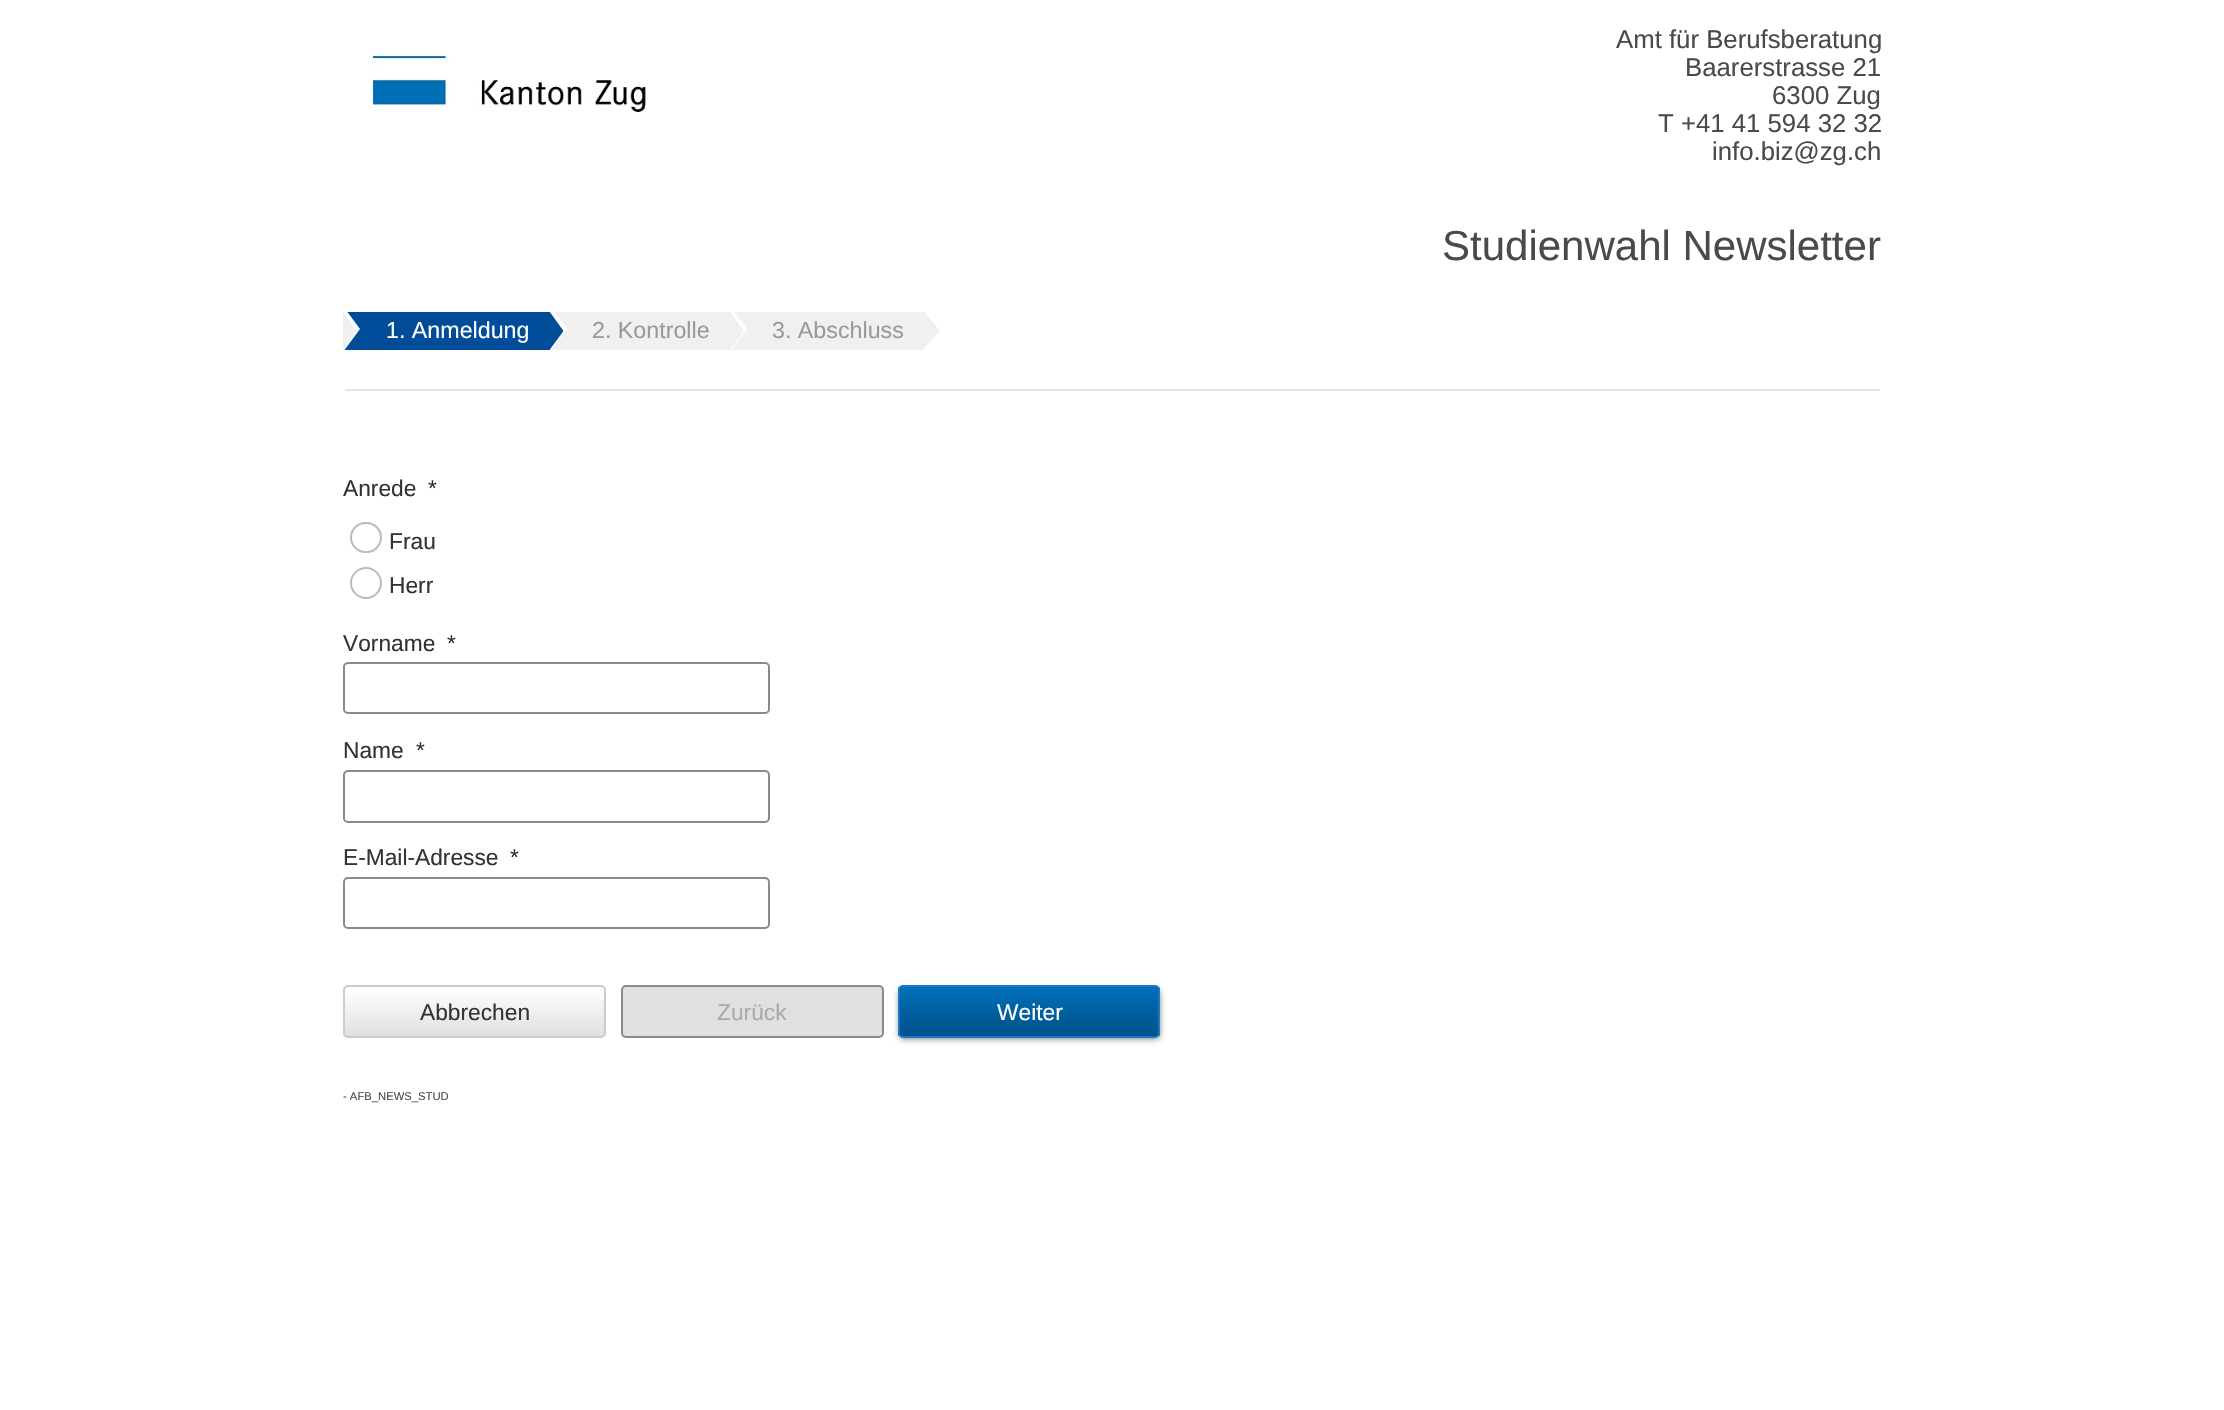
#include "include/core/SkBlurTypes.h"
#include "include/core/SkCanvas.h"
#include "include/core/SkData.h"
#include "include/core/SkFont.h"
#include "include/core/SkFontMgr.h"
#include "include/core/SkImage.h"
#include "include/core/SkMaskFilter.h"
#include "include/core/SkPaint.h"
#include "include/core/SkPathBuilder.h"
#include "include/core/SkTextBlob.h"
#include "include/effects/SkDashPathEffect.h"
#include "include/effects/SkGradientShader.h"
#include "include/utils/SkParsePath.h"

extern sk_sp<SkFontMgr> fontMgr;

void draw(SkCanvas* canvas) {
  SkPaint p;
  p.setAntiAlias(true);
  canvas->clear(SK_ColorWHITE);
  canvas->drawImageRect(SkImages::DeferredFromEncodedData(SkData::MakeFromFileName("images/1.png")), SkRect::MakeLTRB(370, 53, 646, 112), SkSamplingOptions());
  p.setColor(SkColorSetRGB(0, 76, 153));
  canvas->drawRect(SkRect::MakeLTRB(344, 312, 550, 350), p);
  canvas->save();
  canvas->clipRect(SkRect::MakeLTRB(343, 312, 1881, 354));
  p.setColor(SK_ColorWHITE);
  canvas->drawPath(SkPathBuilder().moveTo(343, 352).lineTo(343, 306).lineTo(360, 329).close().detach(), p);
  canvas->restore();
  p.setColor(SkColorSetRGB(240, 240, 240));
  canvas->drawPath(SkPathBuilder().moveTo(343, 350).lineTo(343, 311.5f).lineTo(357, 331).close().detach(), p);
  canvas->drawRect(SkRect::MakeLTRB(551, 312, 730, 350), p);
  canvas->save();
  canvas->clipRect(SkRect::MakeLTRB(343, 312, 1881, 354));
  p.setColor(SK_ColorWHITE);
  canvas->drawPath(SkPathBuilder().moveTo(550, 352).lineTo(550, 306).lineTo(567, 329).close().detach(), p);
  canvas->restore();
  p.setColor(SkColorSetRGB(0, 76, 153));
  canvas->drawPath(SkPathBuilder().moveTo(549.5f, 350).lineTo(549.5f, 311.5f).lineTo(563.5f, 331).close().detach(), p);
  p.setColor(SkColorSetRGB(240, 240, 240));
  canvas->drawRect(SkRect::MakeLTRB(731, 312, 924, 350), p);
  canvas->save();
  canvas->clipRect(SkRect::MakeLTRB(343, 312, 1881, 354));
  p.setColor(SK_ColorWHITE);
  canvas->drawPath(SkPathBuilder().moveTo(730, 352).lineTo(730, 306).lineTo(747, 329).close().detach(), p);
  canvas->restore();
  p.setColor(SkColorSetRGB(240, 240, 240));
  canvas->drawPath(SkPathBuilder().moveTo(730, 350).lineTo(730, 311.5f).lineTo(744, 331).close().detach(), p);
  canvas->drawPath(SkPathBuilder().moveTo(924, 348).lineTo(924, 311.5f).lineTo(940, 331).close().detach(), p);
  p.setColor(SkColorSetRGB(229, 229, 224));
  canvas->drawRect(SkRect::MakeLTRB(345, 389, 1880, 391), p);
  p.setStyle(SkPaint::kStroke_Style);
  p.setStrokeWidth(2);
  p.setColor(SkColorSetRGB(187, 187, 187));
  canvas->drawRoundRect(SkRect::MakeLTRB(351, 523, 381, 552), 14.5f, 14.5f, p);
  canvas->drawCircle(366, 583, 15, p);
  p.setColor(SkColorSetRGB(138, 138, 138));
  canvas->drawRoundRect(SkRect::MakeLTRB(344, 663, 769, 713), 4, 4, p);
  canvas->drawRoundRect(SkRect::MakeLTRB(344, 771, 769, 822), 4, 4, p);
  canvas->drawRoundRect(SkRect::MakeLTRB(344, 878, 769, 928), 4, 4, p);
  canvas->save();
  canvas->clipPath(SkPathBuilder().moveTo(348, 985).lineTo(601, 985).cubicTo(604, 985, 606, 987, 606, 990).lineTo(606, 1033).cubicTo(606, 1036, 604, 1038, 601, 1038).lineTo(348, 1038).cubicTo(345, 1038, 343, 1036, 343, 1033).lineTo(343, 990).cubicTo(343, 987, 345, 985, 348, 985).close().detach(), true);
  p.setStyle(SkPaint::kFill_Style);
  {
    const SkColor colors[] = {SK_ColorWHITE, SkColorSetRGB(224, 224, 224)};
    const float stops[] = {0, 1};
    const SkPoint ends[] = {{474, 987}, {474, 1036}};
    p.setShader(SkGradientShader::MakeLinear(ends, colors, stops, 2, SkTileMode::kClamp));
    p.setAlpha(255);
  }
  canvas->drawRect(SkRect::MakeLTRB(343, 987, 606, 1036), p);
  canvas->restore();
  p.setStyle(SkPaint::kStroke_Style);
  p.setShader(nullptr);
  p.setColor(SkColorSetRGB(204, 204, 204));
  canvas->drawRoundRect(SkRect::MakeLTRB(344, 986, 605, 1037), 4, 4, p);
  p.setStyle(SkPaint::kFill_Style);
  p.setColor(SkColorSetRGB(224, 224, 224));
  canvas->drawRoundRect(SkRect::MakeLTRB(622, 986, 883, 1037), 4, 4, p);
  p.setStyle(SkPaint::kStroke_Style);
  p.setColor(SkColorSetRGB(138, 138, 138));
  canvas->drawRoundRect(SkRect::MakeLTRB(622, 986, 883, 1037), 4, 4, p);
  p.setStyle(SkPaint::kFill_Style);
  p.setColor(SkColorSetRGB(90, 90, 90));
  p.setMaskFilter(SkMaskFilter::MakeBlur(kNormal_SkBlurStyle, 3.5f));
  canvas->drawRoundRect(SkRect::MakeLTRB(900, 991, 1159, 1038), 2.5f, 2.5f, p);
  p.setMaskFilter(nullptr);
  canvas->save();
  canvas->clipPath(SkPathBuilder().moveTo(903, 985).lineTo(1155, 985).cubicTo(1158, 985, 1160, 987, 1160, 990).lineTo(1160, 1033).cubicTo(1160, 1036, 1158, 1038, 1155, 1038).lineTo(903, 1038).cubicTo(900, 1038, 898, 1036, 898, 1033).lineTo(898, 990).cubicTo(898, 987, 900, 985, 903, 985).close().detach(), true);
  {
    const SkColor colors[] = {SkColorSetRGB(0, 111, 186), SkColorSetRGB(0, 81, 135)};
    const float stops[] = {0, 1};
    const SkPoint ends[] = {{1029, 987}, {1029, 1036}};
    p.setShader(SkGradientShader::MakeLinear(ends, colors, stops, 2, SkTileMode::kClamp));
    p.setAlpha(255);
  }
  canvas->drawRect(SkRect::MakeLTRB(898, 987, 1160, 1036), p);
  canvas->restore();
  p.setStyle(SkPaint::kStroke_Style);
  p.setShader(nullptr);
  p.setColor(SkColorSetRGB(26, 120, 202));
  canvas->drawRoundRect(SkRect::MakeLTRB(899, 986, 1159, 1037), 4, 4, p);
  SkFont font1(fontMgr->matchFamilyStyle("Liberation Sans", SkFontStyle::Normal()), 25.75f);
  font1.setSubpixel(true);
  p.setStyle(SkPaint::kFill_Style);
  p.setColor(SkColorSetRGB(74, 74, 74));
  canvas->drawString("Amt für Berufsberatung", 1616, 48, font1, p);
  canvas->drawString("Baarerstrasse 21", 1685, 76, font1, p);
  canvas->drawString("6300 Zug", 1772, 104, font1, p);
  canvas->drawString("T +41 41 594 32 32", 1658, 132, font1, p);
  canvas->drawString("info.biz@zg.ch", 1712, 160, font1, p);
  SkFont font2(fontMgr->matchFamilyStyle("Liberation Sans", SkFontStyle::Normal()), 42);
  font2.setSubpixel(true);
  canvas->drawString("Studienwahl Newsletter", 1442, 260, font2, p);
  SkFont font3(fontMgr->matchFamilyStyle("Liberation Sans", SkFontStyle::Normal()), 23.25f);
  font3.setSubpixel(true);
  p.setColor(SK_ColorWHITE);
  canvas->drawString("1. Anmeldung", 386, 338, font3, p);
  p.setColor(SkColorSetRGB(153, 153, 153));
  canvas->drawString("2. Kontrolle", 592, 338, font3, p);
  canvas->drawString("3. Abschluss", 772, 338, font3, p);
  SkFont font4(fontMgr->matchFamilyStyle("Liberation Sans", SkFontStyle::Normal()), 22.75f);
  font4.setSubpixel(true);
  p.setColor(SkColorSetRGB(51, 51, 51));
  canvas->drawString("Anrede", 343, 496, font4, p);
  canvas->drawString("*", 428, 496, font4, p);
  canvas->drawString("Frau", 389, 549, font4, p);
  canvas->drawString("Herr", 389, 593, font4, p);
  canvas->drawString("Vorname", 343, 651, font4, p);
  canvas->drawString("*", 447, 651, font4, p);
  canvas->drawString("Name", 343, 758, font4, p);
  canvas->drawString("*", 416, 758, font4, p);
  canvas->drawString("E-Mail-Adresse", 343, 865, font4, p);
  canvas->drawString("*", 510, 865, font4, p);
  canvas->drawString("Abbrechen", 420, 1020, font4, p);
  p.setColor(SkColorSetRGB(170, 170, 170));
  canvas->drawString("Zurück", 717, 1020, font4, p);
  p.setColor(SK_ColorWHITE);
  canvas->drawString("Weiter", 997, 1020, font4, p);
  SkFont font5(fontMgr->matchFamilyStyle("Liberation Sans", SkFontStyle::Normal()), 11.25f);
  font5.setSubpixel(true);
  p.setColor(SkColorSetRGB(74, 74, 74));
  canvas->drawString("- AFB_NEWS_STUD", 343, 1100, font5, p);
}
